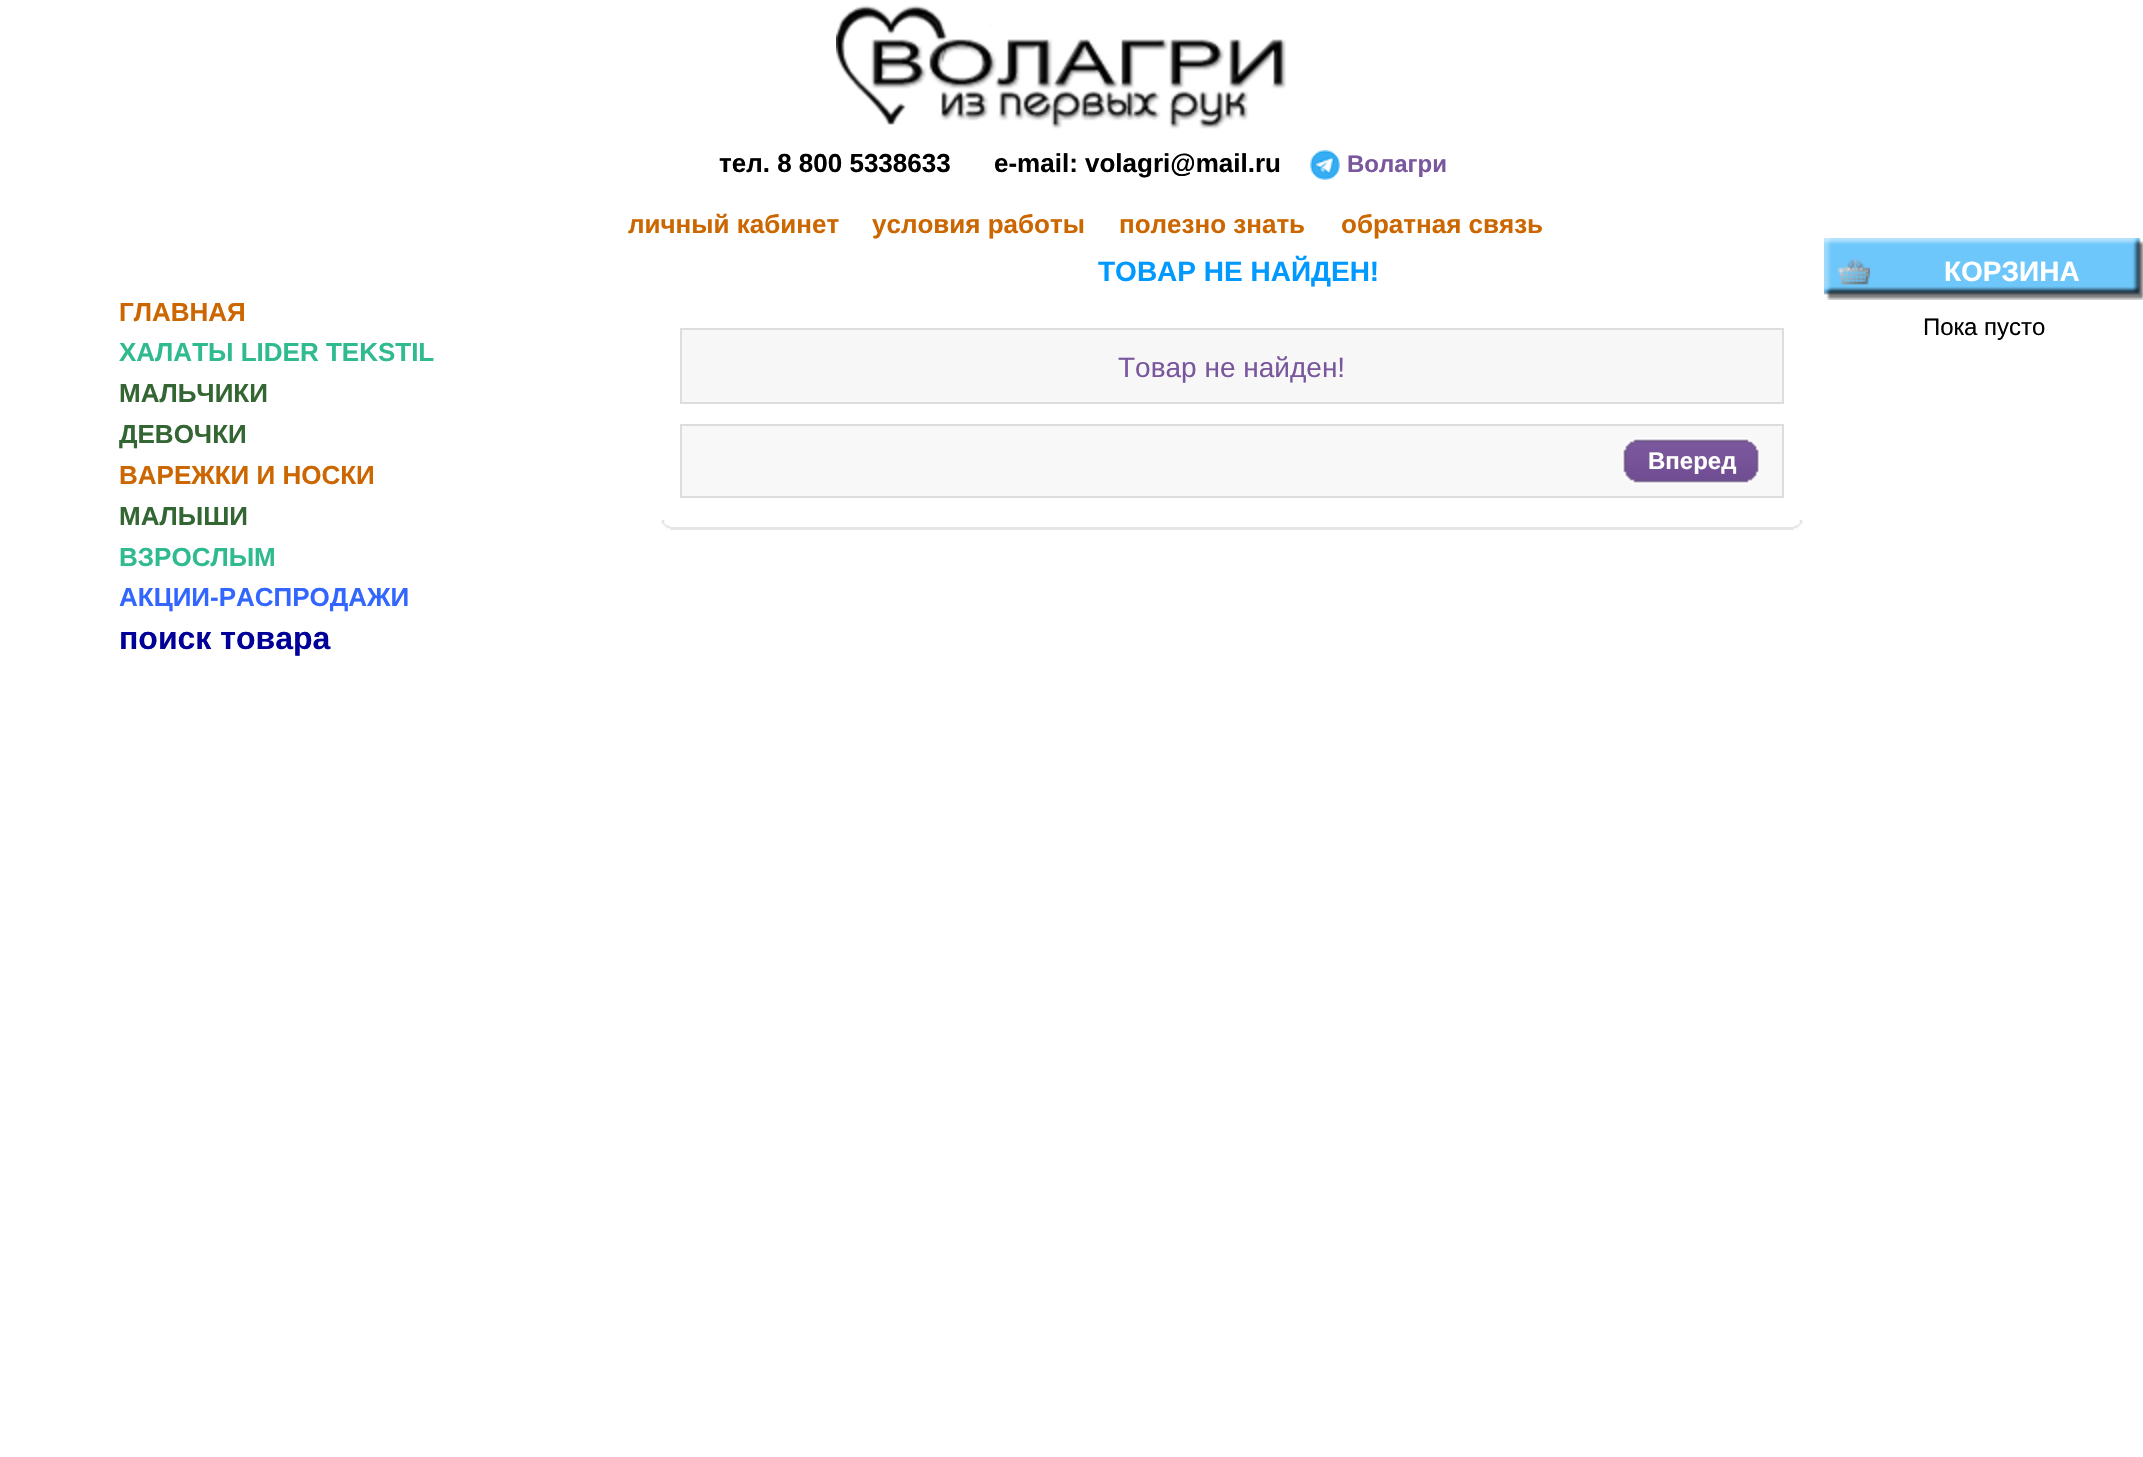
#include "include/core/SkBlurTypes.h"
#include "include/core/SkCanvas.h"
#include "include/core/SkData.h"
#include "include/core/SkFont.h"
#include "include/core/SkFontMgr.h"
#include "include/core/SkImage.h"
#include "include/core/SkMaskFilter.h"
#include "include/core/SkPaint.h"
#include "include/core/SkPathBuilder.h"
#include "include/core/SkTextBlob.h"
#include "include/effects/SkDashPathEffect.h"
#include "include/effects/SkGradientShader.h"
#include "include/utils/SkParsePath.h"

extern sk_sp<SkFontMgr> fontMgr;

void draw(SkCanvas* canvas) {
  SkPaint p;
  p.setAntiAlias(true);
  canvas->clear(SK_ColorWHITE);
  canvas->drawImageRect(SkImages::DeferredFromEncodedData(SkData::MakeFromFileName("images/1.png")), SkRect::MakeLTRB(836, 5, 1286, 129), SkSamplingOptions());
  canvas->drawImageRect(SkImages::DeferredFromEncodedData(SkData::MakeFromFileName("images/2.png")), SkRect::MakeLTRB(1310, 150, 1340, 180), SkSamplingOptions());
  p.setColor(SkColorSetRGB(247, 247, 247));
  canvas->drawRect(SkRect::MakeLTRB(681, 329, 1783, 403), p);
  p.setStyle(SkPaint::kStroke_Style);
  p.setStrokeWidth(2);
  p.setColor(SkColorSetRGB(221, 221, 221));
  canvas->drawRect(SkRect::MakeLTRB(681, 329, 1783, 403), p);
  p.setStyle(SkPaint::kFill_Style);
  p.setColor(SkColorSetRGB(248, 248, 248));
  canvas->drawRect(SkRect::MakeLTRB(681, 425, 1783, 497), p);
  p.setStyle(SkPaint::kStroke_Style);
  p.setColor(SkColorSetRGB(221, 221, 221));
  canvas->drawRect(SkRect::MakeLTRB(681, 425, 1783, 497), p);
  canvas->drawImageRect(SkImages::DeferredFromEncodedData(SkData::MakeFromFileName("images/3.png")), SkRect::MakeLTRB(1622, 438, 1640, 484), SkSamplingOptions());
  canvas->drawImageRect(SkImages::DeferredFromEncodedData(SkData::MakeFromFileName("images/4.png")), SkRect::MakeLTRB(1640, 438, 1760, 484), SkSamplingOptions());
  canvas->drawImageRect(SkImages::DeferredFromEncodedData(SkData::MakeFromFileName("images/5.png")), SkRect::MakeLTRB(661, 520, 670, 529), SkSamplingOptions());
  p.setStyle(SkPaint::kFill_Style);
  p.setColor(SkColorSetRGB(230, 230, 230));
  canvas->drawRect(SkRect::MakeLTRB(670, 527, 1794, 530), p);
  canvas->drawImageRect(SkImages::DeferredFromEncodedData(SkData::MakeFromFileName("images/6.png")), SkRect::MakeLTRB(1794, 520, 1803, 529), SkSamplingOptions());
  canvas->drawImageRect(SkImages::DeferredFromEncodedData(SkData::MakeFromFileName("images/7.png")), SkRect::MakeLTRB(1824, 238, 2143, 300), SkSamplingOptions());
  canvas->drawImageRect(SkImages::DeferredFromEncodedData(SkData::MakeFromFileName("images/8.png")), SkRect::MakeLTRB(1838, 259, 1870, 285), SkSamplingOptions());
  SkFont font1(fontMgr->matchFamilyStyle("Liberation Sans", SkFontStyle::Bold()), 26);
  font1.setSubpixel(true);
  p.setColor(SK_ColorBLACK);
  canvas->drawString("тел. 8 800 5338633", 719, 172, font1, p);
  canvas->drawString("e-mail: volagri@mail.ru", 994, 172, font1, p);
  SkFont font2(fontMgr->matchFamilyStyle("Liberation Sans", SkFontStyle::Bold()), 24);
  font2.setSubpixel(true);
  p.setColor(SkColorSetRGB(122, 86, 157));
  canvas->drawString("Волагри", 1347, 172, font2, p);
  p.setColor(SkColorSetRGB(204, 102, 0));
  canvas->drawString("личный кабинет", 628, 233, font1, p);
  canvas->drawString("условия работы", 872, 233, font1, p);
  canvas->drawString("полезно знать", 1119, 233, font1, p);
  canvas->drawString("обратная связь", 1341, 233, font1, p);
  canvas->drawString("ГЛАВНАЯ", 119, 321, font1, p);
  p.setColor(SkColorSetRGB(48, 186, 143));
  canvas->drawString("ХАЛАТЫ LIDER TEKSTIL", 119, 361, font1, p);
  p.setColor(SkColorSetRGB(51, 102, 51));
  canvas->drawString("МАЛЬЧИКИ", 119, 402, font1, p);
  canvas->drawString("ДЕВОЧКИ", 119, 443, font1, p);
  p.setColor(SkColorSetRGB(204, 102, 0));
  canvas->drawString("ВАРЕЖКИ И НОСКИ", 119, 484, font1, p);
  p.setColor(SkColorSetRGB(51, 102, 51));
  canvas->drawString("МАЛЫШИ", 119, 525, font1, p);
  p.setColor(SkColorSetRGB(48, 186, 143));
  canvas->drawString("ВЗРОСЛЫМ", 119, 566, font1, p);
  p.setColor(SkColorSetRGB(51, 102, 255));
  canvas->drawString("АКЦИИ-РАСПРОДАЖИ", 119, 606, font1, p);
  SkFont font3(fontMgr->matchFamilyStyle("Liberation Sans", SkFontStyle::Bold()), 32);
  font3.setSubpixel(true);
  p.setColor(SkColorSetRGB(0, 0, 153));
  canvas->drawString("поиск товара", 119, 649, font3, p);
  SkFont font4(fontMgr->matchFamilyStyle("Liberation Sans", SkFontStyle::Bold()), 28);
  font4.setSubpixel(true);
  p.setColor(SkColorSetRGB(0, 153, 255));
  canvas->drawString("ТОВАР НЕ НАЙДЕН!", 1098, 281, font4, p);
  SkFont font5(fontMgr->matchFamilyStyle("Liberation Sans", SkFontStyle::Normal()), 28);
  font5.setSubpixel(true);
  p.setColor(SkColorSetRGB(122, 86, 157));
  canvas->drawString("Товар не найден!", 1118, 377, font5, p);
  p.setColor(SK_ColorWHITE);
  canvas->drawString("Вперед", 1648, 469, font2, p);
  canvas->drawString("КОРЗИНА", 1944, 281, font4, p);
  SkFont font6(fontMgr->matchFamilyStyle("Liberation Sans", SkFontStyle::Normal()), 24);
  font6.setSubpixel(true);
  p.setColor(SK_ColorBLACK);
  canvas->drawString("Пока пусто", 1923, 335, font6, p);
}
